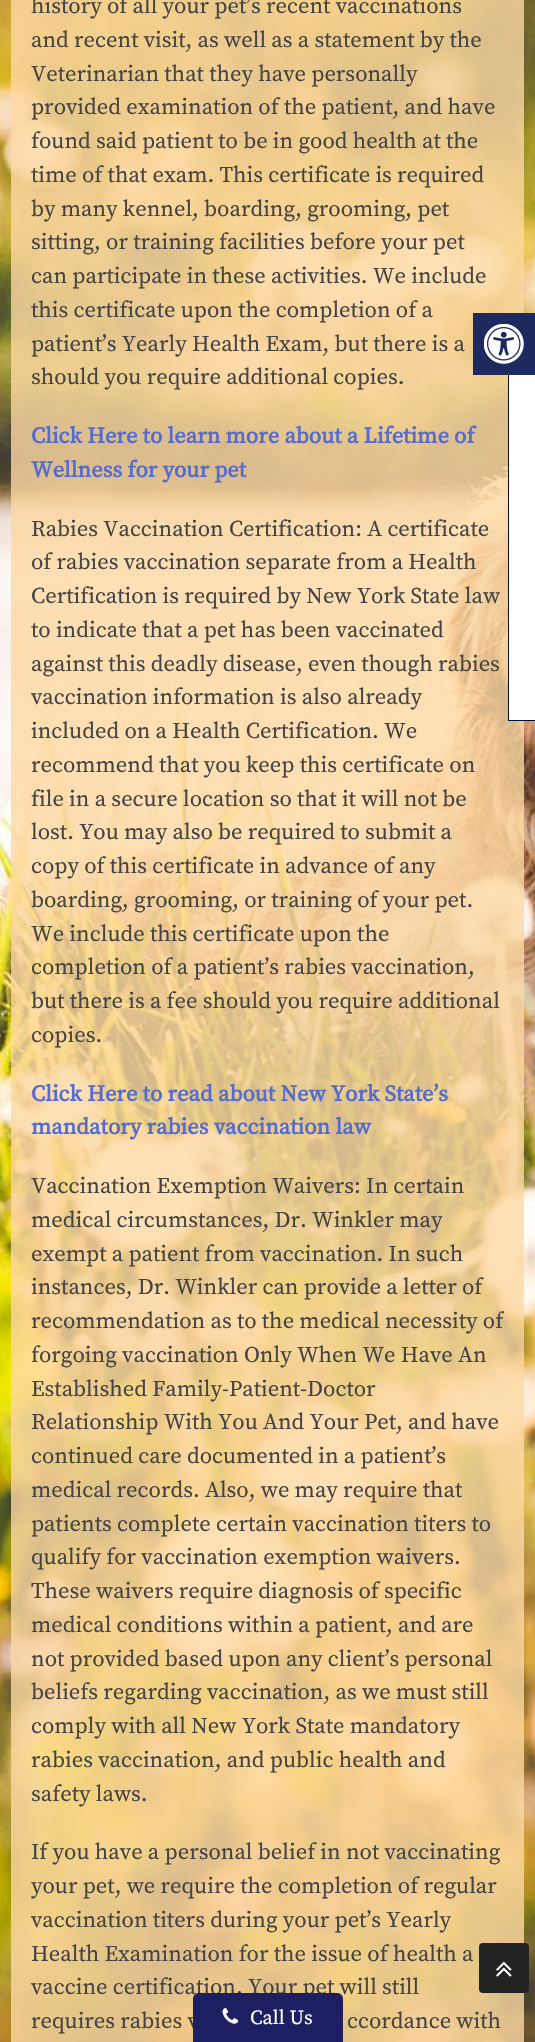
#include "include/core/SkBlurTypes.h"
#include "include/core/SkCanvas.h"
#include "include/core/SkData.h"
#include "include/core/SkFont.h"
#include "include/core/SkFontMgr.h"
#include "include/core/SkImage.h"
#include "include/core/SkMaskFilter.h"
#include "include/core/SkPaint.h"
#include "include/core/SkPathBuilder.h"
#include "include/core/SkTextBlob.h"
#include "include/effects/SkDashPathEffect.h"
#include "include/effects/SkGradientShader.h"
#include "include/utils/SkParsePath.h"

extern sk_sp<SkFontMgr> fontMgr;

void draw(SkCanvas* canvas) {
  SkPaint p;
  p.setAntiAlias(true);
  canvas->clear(SK_ColorWHITE);
  canvas->drawImageRect(SkImages::DeferredFromEncodedData(SkData::MakeFromFileName("images/1.png")), SkRect::MakeLTRB(0, 0, 535, 2042), SkSamplingOptions());
  p.setColor(SkColorSetARGB(204, 253, 216, 163));
  canvas->drawRect(SkRect::MakeLTRB(11, 0, 524, 2042), p);
  p.setColor(SK_ColorWHITE);
  canvas->drawRect(SkRect::MakeLTRB(509, 375, 535, 720), p);
  p.setStyle(SkPaint::kStroke_Style);
  p.setStrokeWidth(1);
  p.setColor(SkColorSetRGB(6, 13, 47));
  canvas->drawRect(SkRect::MakeLTRB(508.5f, 313.5f, 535.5f, 720.5f), p);
  p.setStyle(SkPaint::kFill_Style);
  p.setColor(SkColorSetRGB(29, 42, 95));
  canvas->drawRect(SkRect::MakeLTRB(473, 313, 535, 375), p);
  canvas->drawImageRect(SkImages::DeferredFromEncodedData(SkData::MakeFromFileName("images/2.png")), SkRect::MakeLTRB(484, 324, 524, 364), SkSamplingOptions());
  p.setColor(SkColorSetRGB(34, 34, 34));
  canvas->drawRoundRect(SkRect::MakeLTRB(479, 1943, 529, 1993), 4, 4, p);
  canvas->drawImageRect(SkImages::DeferredFromEncodedData(SkData::MakeFromFileName("images/3.png")), SkRect::MakeLTRB(496, 1961, 512, 1977), SkSamplingOptions());
  SkFont font1(fontMgr->matchFamilyStyle("Source Serif Pro", SkFontStyle::Normal()), 22.5f);
  font1.setSubpixel(true);
  p.setColor(SkColorSetRGB(68, 68, 68));
  canvas->drawString("history of all your pet’s recent vaccinations", 31, 13, font1, p);
  canvas->drawString("and recent visit, as well as a statement by the", 31, 47, font1, p);
  canvas->drawString("Veterinarian that they have personally", 31, 81, font1, p);
  canvas->drawString("provided examination of the patient, and have", 31, 114, font1, p);
  canvas->drawString("found said patient to be in good health at the", 31, 148, font1, p);
  canvas->drawString("time of that exam. This certificate is required", 31, 182, font1, p);
  canvas->drawString("by many kennel, boarding, grooming, pet", 31, 216, font1, p);
  canvas->drawString("sitting, or training facilities before your pet", 31, 249, font1, p);
  canvas->drawString("can participate in these activities. We include", 31, 283, font1, p);
  canvas->drawString("this certificate upon the completion of a", 31, 317, font1, p);
  canvas->drawString("patient’s Yearly Health Exam, but there is a", 31, 351, font1, p);
  canvas->drawString("should you require additional copies.", 31, 384, font1, p);
  SkFont font2(fontMgr->matchFamilyStyle("Source Serif Pro", SkFontStyle::Bold()), 22.5f);
  font2.setSubpixel(true);
  p.setColor(SkColorSetRGB(84, 108, 207));
  canvas->drawString("Click Here to learn more about a Lifetime of", 31, 443, font2, p);
  canvas->drawString("Wellness for your pet", 31, 477, font2, p);
  p.setColor(SkColorSetRGB(68, 68, 68));
  canvas->drawString("Rabies Vaccination Certification: A certificate", 31, 536, font1, p);
  canvas->drawString("of rabies vaccination separate from a Health", 31, 569, font1, p);
  canvas->drawString("Certification is required by New York State law", 31, 603, font1, p);
  canvas->drawString("to indicate that a pet has been vaccinated", 31, 637, font1, p);
  canvas->drawString("against this deadly disease, even though rabies", 31, 671, font1, p);
  canvas->drawString("vaccination information is also already", 31, 704, font1, p);
  canvas->drawString("included on a Health Certification. We", 31, 738, font1, p);
  canvas->drawString("recommend that you keep this certificate on", 31, 772, font1, p);
  canvas->drawString("file in a secure location so that it will not be", 31, 806, font1, p);
  canvas->drawString("lost. You may also be required to submit a", 31, 839, font1, p);
  canvas->drawString("copy of this certificate in advance of any", 31, 873, font1, p);
  canvas->drawString("boarding, grooming, or training of your pet.", 31, 907, font1, p);
  canvas->drawString("We include this certificate upon the", 31, 941, font1, p);
  canvas->drawString("completion of a patient’s rabies vaccination,", 31, 974, font1, p);
  canvas->drawString("but there is a fee should you require additional", 31, 1008, font1, p);
  canvas->drawString("copies.", 31, 1042, font1, p);
  p.setColor(SkColorSetRGB(84, 108, 207));
  canvas->drawString("Click Here to read about New York State’s", 31, 1101, font2, p);
  canvas->drawString("mandatory rabies vaccination law", 31, 1134, font2, p);
  p.setColor(SkColorSetRGB(68, 68, 68));
  canvas->drawString("Vaccination Exemption Waivers: In certain", 31, 1193, font1, p);
  canvas->drawString("medical circumstances, Dr. Winkler may", 31, 1227, font1, p);
  canvas->drawString("exempt a patient from vaccination. In such", 31, 1261, font1, p);
  canvas->drawString("instances, Dr. Winkler can provide a letter of", 31, 1294, font1, p);
  canvas->save();
  canvas->clipRect(SkRect::MakeLTRB(31, 0, 504, 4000));
  canvas->drawString("recommendation as to the medical necessity of", 31, 1328, font1, p);
  canvas->restore();
  canvas->drawString("forgoing vaccination Only When We Have An", 31, 1362, font1, p);
  canvas->drawString("Established Family-Patient-Doctor", 31, 1396, font1, p);
  canvas->drawString("Relationship With You And Your Pet, and have", 31, 1429, font1, p);
  canvas->drawString("continued care documented in a patient’s", 31, 1463, font1, p);
  canvas->drawString("medical records. Also, we may require that", 31, 1497, font1, p);
  canvas->drawString("patients complete certain vaccination titers to", 31, 1531, font1, p);
  canvas->drawString("qualify for vaccination exemption waivers.", 31, 1564, font1, p);
  canvas->drawString("These waivers require diagnosis of specific", 31, 1598, font1, p);
  canvas->drawString("medical conditions within a patient, and are", 31, 1632, font1, p);
  canvas->drawString("not provided based upon any client’s personal", 31, 1666, font1, p);
  canvas->drawString("beliefs regarding vaccination, as we must still", 31, 1699, font1, p);
  canvas->drawString("comply with all New York State mandatory", 31, 1733, font1, p);
  canvas->drawString("rabies vaccination, and public health and", 31, 1767, font1, p);
  canvas->drawString("safety laws.", 31, 1801, font1, p);
  canvas->drawString("If you have a personal belief in not vaccinating", 31, 1859, font1, p);
  canvas->drawString("your pet, we require the completion of regular", 31, 1893, font1, p);
  canvas->drawString("vaccination titers during your pet’s Yearly", 31, 1927, font1, p);
  canvas->drawString("Health Examination for the issue of health a", 31, 1961, font1, p);
  canvas->drawString("vaccine certification. Your pet will still", 31, 1994, font1, p);
  canvas->drawString("requires rabies v", 31, 2028, font1, p);
  canvas->drawString("ccordance with", 347, 2028, font1, p);
  p.setColor(SkColorSetRGB(30, 30, 98));
  canvas->drawPath(SkPathBuilder().moveTo(199, 1993).lineTo(337, 1993).cubicTo(340.5f, 1993, 343, 1995.5f, 343, 1999).lineTo(343, 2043).lineTo(193, 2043).lineTo(193, 1999).cubicTo(193, 1995.5f, 195.5f, 1993, 199, 1993).close().detach(), p);
  canvas->drawImageRect(SkImages::DeferredFromEncodedData(SkData::MakeFromFileName("images/4.png")), SkRect::MakeLTRB(222, 2008, 239, 2024), SkSamplingOptions());
  SkFont font3(fontMgr->matchFamilyStyle("Source Serif Pro", SkFontStyle::Normal()), 20);
  font3.setSubpixel(true);
  p.setColor(SK_ColorWHITE);
  canvas->drawString("Call Us", 250, 2024, font3, p);
}
